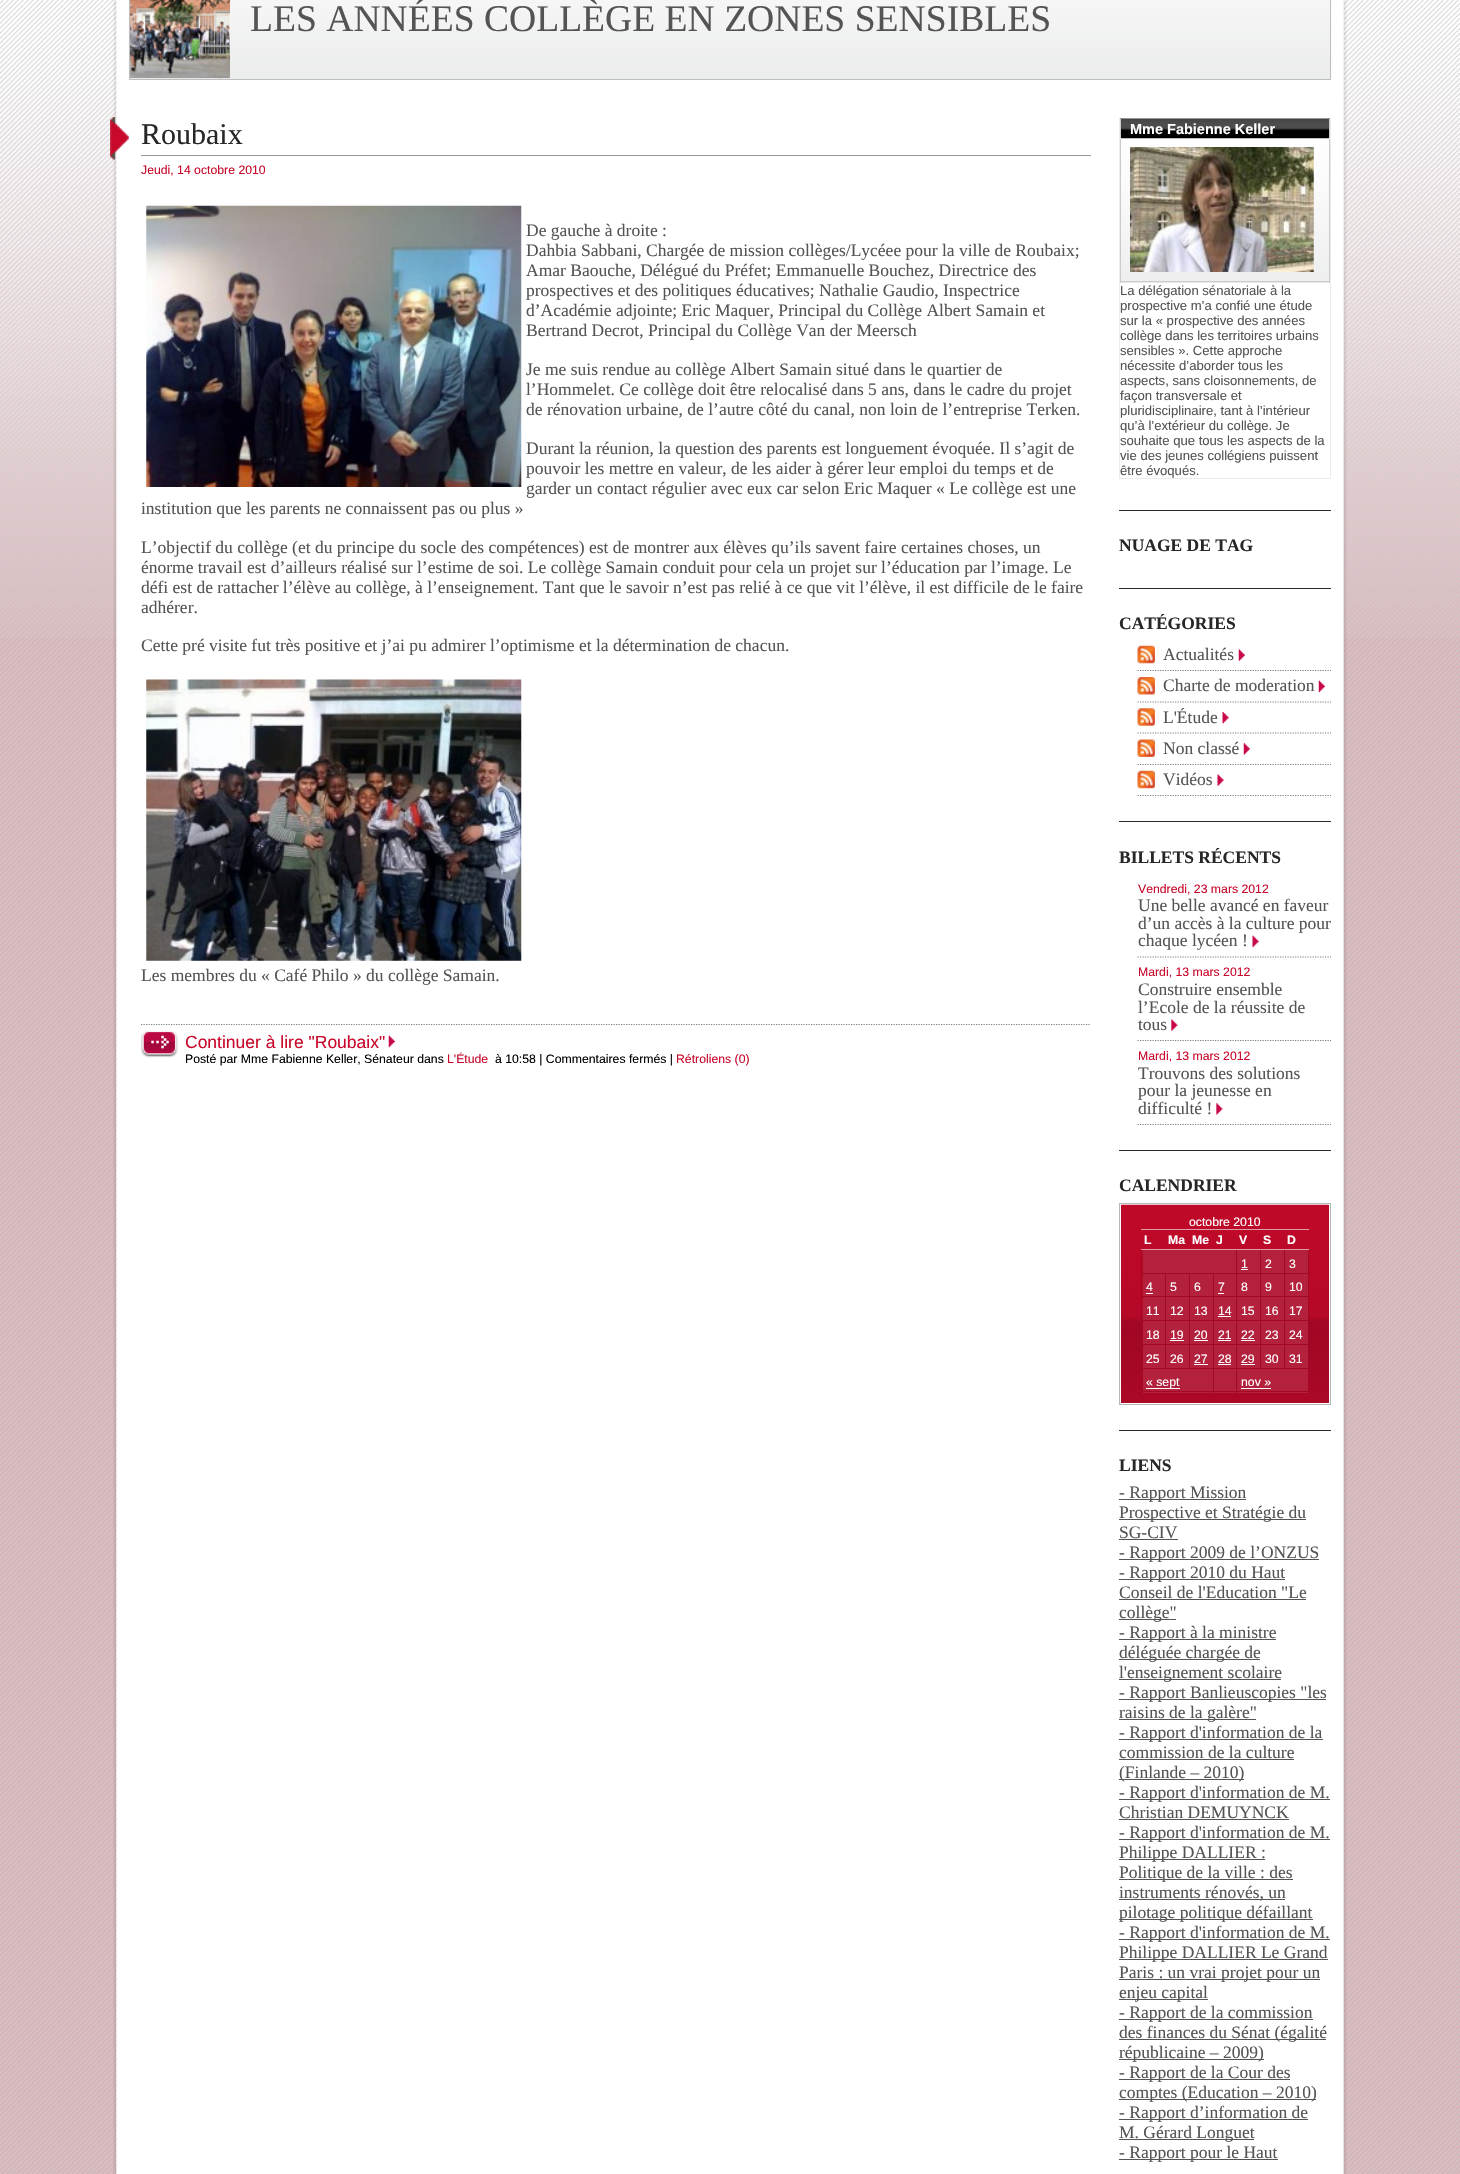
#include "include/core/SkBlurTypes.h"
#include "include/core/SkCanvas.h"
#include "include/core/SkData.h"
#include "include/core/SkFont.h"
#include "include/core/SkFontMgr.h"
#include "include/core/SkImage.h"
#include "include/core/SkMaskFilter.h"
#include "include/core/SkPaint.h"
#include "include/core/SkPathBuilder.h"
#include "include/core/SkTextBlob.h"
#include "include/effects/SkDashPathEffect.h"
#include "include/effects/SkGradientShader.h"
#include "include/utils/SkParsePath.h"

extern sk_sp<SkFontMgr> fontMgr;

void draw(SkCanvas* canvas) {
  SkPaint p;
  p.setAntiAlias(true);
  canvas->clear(SkColorSetRGB(216, 180, 184));
  canvas->drawImageRect(SkImages::DeferredFromEncodedData(SkData::MakeFromFileName("images/1.png")), SkRect::MakeLTRB(0, 0, 1460, 638), SkSamplingOptions());
  canvas->drawImageRect(SkImages::DeferredFromEncodedData(SkData::MakeFromFileName("images/2.png")), SkRect::MakeLTRB(0, 0, 1460, 2174), SkSamplingOptions());
  canvas->drawImageRect(SkImages::DeferredFromEncodedData(SkData::MakeFromFileName("images/3.png")), SkRect::MakeLTRB(113, 0, 1347, 2174), SkSamplingOptions());
  canvas->drawImageRect(SkImages::DeferredFromEncodedData(SkData::MakeFromFileName("images/4.png")), SkRect::MakeLTRB(128, 0, 1332, 79), SkSamplingOptions());
  p.setStyle(SkPaint::kStroke_Style);
  p.setStrokeWidth(1);
  p.setColor(SkColorSetRGB(190, 190, 190));
  canvas->drawRect(SkRect::MakeLTRB(129.5f, -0.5f, 1330.5f, 79.5f), p);
  p.setStyle(SkPaint::kFill_Style);
  canvas->drawRect(SkRect::MakeLTRB(220, 78, 221, 79), p);
  canvas->drawImageRect(SkImages::DeferredFromEncodedData(SkData::MakeFromFileName("images/5.png")), SkRect::MakeLTRB(130, 0, 230, 79), SkSamplingOptions());
  canvas->drawImageRect(SkImages::DeferredFromEncodedData(SkData::MakeFromFileName("images/6.png")), SkRect::MakeLTRB(110, 117, 129, 160), SkSamplingOptions());
  p.setColor(SkColorSetRGB(149, 149, 149));
  canvas->drawRect(SkRect::MakeLTRB(141, 155, 1091, 156), p);
  canvas->drawImageRect(SkImages::DeferredFromEncodedData(SkData::MakeFromFileName("images/7.png")), SkRect::MakeLTRB(146, 205, 522, 487), SkSamplingOptions());
  canvas->drawImageRect(SkImages::DeferredFromEncodedData(SkData::MakeFromFileName("images/8.png")), SkRect::MakeLTRB(146, 679, 522, 961), SkSamplingOptions());
  canvas->drawImageRect(SkImages::DeferredFromEncodedData(SkData::MakeFromFileName("images/9.png")), SkRect::MakeLTRB(141, 1031, 178, 1058), SkSamplingOptions());
  p.setStyle(SkPaint::kStroke_Style);
  p.setStrokeWidth(1.2f);
  p.setColor(SkColorSetRGB(127, 127, 127));
  p.setPathEffect(SkDashPathEffect::Make({{1.25f, 1.25f}}, 0));
  canvas->drawPath(SkPathBuilder().moveTo(141, 1024.5f).lineTo(1091, 1024.5f).detach(), p);
  p.setPathEffect(nullptr);
  canvas->drawImageRect(SkImages::DeferredFromEncodedData(SkData::MakeFromFileName("images/10.png")), SkRect::MakeLTRB(388, 1035, 395, 1048), SkSamplingOptions());
  p.setStyle(SkPaint::kFill_Style);
  p.setColor(SkColorSetRGB(43, 43, 43));
  canvas->drawRect(SkRect::MakeLTRB(1119, 510, 1331, 511), p);
  p.setStyle(SkPaint::kStroke_Style);
  p.setStrokeWidth(1);
  p.setColor(SkColorSetRGB(236, 236, 236));
  canvas->drawRect(SkRect::MakeLTRB(1119.5f, 118.5f, 1330.5f, 478.5f), p);
  p.setStyle(SkPaint::kFill_Style);
  p.setColor(SK_ColorBLACK);
  canvas->drawRect(SkRect::MakeLTRB(1121, 130, 1329, 139), p);
  canvas->drawImageRect(SkImages::DeferredFromEncodedData(SkData::MakeFromFileName("images/11.png")), SkRect::MakeLTRB(1120, 118, 1330, 130), SkSamplingOptions());
  p.setColor(SkColorSetRGB(203, 203, 203));
  canvas->drawRect(SkRect::MakeLTRB(1329, 119, 1330, 139), p);
  canvas->drawRect(SkRect::MakeLTRB(1120, 119, 1121, 139), p);
  p.setColor(SkColorSetRGB(232, 233, 234));
  canvas->drawRect(SkRect::MakeLTRB(1121, 282, 1329, 283), p);
  canvas->drawImageRect(SkImages::DeferredFromEncodedData(SkData::MakeFromFileName("images/12.png")), SkRect::MakeLTRB(1120, 138, 1330, 281), SkSamplingOptions());
  p.setColor(SkColorSetRGB(203, 203, 203));
  canvas->drawRect(SkRect::MakeLTRB(1329, 139, 1330, 283), p);
  canvas->drawRect(SkRect::MakeLTRB(1120, 281, 1330, 282), p);
  canvas->drawRect(SkRect::MakeLTRB(1120, 139, 1121, 283), p);
  canvas->drawImageRect(SkImages::DeferredFromEncodedData(SkData::MakeFromFileName("images/13.png")), SkRect::MakeLTRB(1130, 147, 1314, 272), SkSamplingOptions());
  p.setColor(SkColorSetRGB(43, 43, 43));
  canvas->drawRect(SkRect::MakeLTRB(1119, 588, 1331, 589), p);
  canvas->drawRect(SkRect::MakeLTRB(1119, 821, 1331, 822), p);
  p.setStyle(SkPaint::kStroke_Style);
  p.setStrokeWidth(1.2f);
  p.setColor(SkColorSetRGB(127, 127, 127));
  p.setPathEffect(SkDashPathEffect::Make({{1.25f, 1.25f}}, 0));
  canvas->drawPath(SkPathBuilder().moveTo(1137.5f, 670.5f).lineTo(1331, 670.5f).detach(), p);
  p.setPathEffect(nullptr);
  canvas->drawImageRect(SkImages::DeferredFromEncodedData(SkData::MakeFromFileName("images/14.png")), SkRect::MakeLTRB(1137, 645, 1155, 664), SkSamplingOptions());
  canvas->drawImageRect(SkImages::DeferredFromEncodedData(SkData::MakeFromFileName("images/15.png")), SkRect::MakeLTRB(1238, 649, 1245, 661), SkSamplingOptions());
  p.setPathEffect(SkDashPathEffect::Make({{1.25f, 1.25f}}, 0));
  canvas->drawPath(SkPathBuilder().moveTo(1137.5f, 702).lineTo(1331, 702).detach(), p);
  p.setPathEffect(nullptr);
  canvas->drawImageRect(SkImages::DeferredFromEncodedData(SkData::MakeFromFileName("images/16.png")), SkRect::MakeLTRB(1137, 677, 1155, 695), SkSamplingOptions());
  canvas->drawImageRect(SkImages::DeferredFromEncodedData(SkData::MakeFromFileName("images/10.png")), SkRect::MakeLTRB(1318, 680, 1325, 693), SkSamplingOptions());
  p.setPathEffect(SkDashPathEffect::Make({{1.25f, 1.25f}}, 0));
  canvas->drawPath(SkPathBuilder().moveTo(1137.5f, 733).lineTo(1331, 733).detach(), p);
  p.setPathEffect(nullptr);
  canvas->drawImageRect(SkImages::DeferredFromEncodedData(SkData::MakeFromFileName("images/17.png")), SkRect::MakeLTRB(1137, 708, 1155, 726), SkSamplingOptions());
  canvas->drawImageRect(SkImages::DeferredFromEncodedData(SkData::MakeFromFileName("images/18.png")), SkRect::MakeLTRB(1222, 712, 1229, 724), SkSamplingOptions());
  p.setPathEffect(SkDashPathEffect::Make({{1.25f, 1.25f}}, 0));
  canvas->drawPath(SkPathBuilder().moveTo(1137.5f, 764.5f).lineTo(1331, 764.5f).detach(), p);
  p.setPathEffect(nullptr);
  canvas->drawImageRect(SkImages::DeferredFromEncodedData(SkData::MakeFromFileName("images/19.png")), SkRect::MakeLTRB(1137, 739, 1155, 757), SkSamplingOptions());
  canvas->drawImageRect(SkImages::DeferredFromEncodedData(SkData::MakeFromFileName("images/20.png")), SkRect::MakeLTRB(1243, 743, 1250, 755), SkSamplingOptions());
  p.setPathEffect(SkDashPathEffect::Make({{1.25f, 1.25f}}, 0));
  canvas->drawPath(SkPathBuilder().moveTo(1137.5f, 795.5f).lineTo(1331, 795.5f).detach(), p);
  p.setPathEffect(nullptr);
  canvas->drawImageRect(SkImages::DeferredFromEncodedData(SkData::MakeFromFileName("images/21.png")), SkRect::MakeLTRB(1137, 770, 1155, 789), SkSamplingOptions());
  canvas->drawImageRect(SkImages::DeferredFromEncodedData(SkData::MakeFromFileName("images/22.png")), SkRect::MakeLTRB(1217, 774, 1224, 786), SkSamplingOptions());
  p.setStyle(SkPaint::kFill_Style);
  p.setColor(SkColorSetRGB(43, 43, 43));
  canvas->drawRect(SkRect::MakeLTRB(1119, 1150, 1331, 1151), p);
  p.setStyle(SkPaint::kStroke_Style);
  p.setColor(SkColorSetRGB(127, 127, 127));
  p.setPathEffect(SkDashPathEffect::Make({{1.25f, 1.25f}}, 0));
  canvas->drawPath(SkPathBuilder().moveTo(1137.5f, 957).lineTo(1331, 957).detach(), p);
  p.setPathEffect(nullptr);
  canvas->drawImageRect(SkImages::DeferredFromEncodedData(SkData::MakeFromFileName("images/23.png")), SkRect::MakeLTRB(1252, 935, 1259, 948), SkSamplingOptions());
  p.setPathEffect(SkDashPathEffect::Make({{1.25f, 1.25f}}, 0));
  canvas->drawPath(SkPathBuilder().moveTo(1137.5f, 1040.5f).lineTo(1331, 1040.5f).detach(), p);
  p.setPathEffect(nullptr);
  canvas->drawImageRect(SkImages::DeferredFromEncodedData(SkData::MakeFromFileName("images/24.png")), SkRect::MakeLTRB(1171, 1019, 1178, 1031), SkSamplingOptions());
  p.setPathEffect(SkDashPathEffect::Make({{1.25f, 1.25f}}, 0));
  canvas->drawPath(SkPathBuilder().moveTo(1137.5f, 1124.5f).lineTo(1331, 1124.5f).detach(), p);
  p.setPathEffect(nullptr);
  canvas->drawImageRect(SkImages::DeferredFromEncodedData(SkData::MakeFromFileName("images/25.png")), SkRect::MakeLTRB(1216, 1103, 1223, 1115), SkSamplingOptions());
  p.setStyle(SkPaint::kFill_Style);
  p.setColor(SkColorSetRGB(43, 43, 43));
  canvas->drawRect(SkRect::MakeLTRB(1119, 1430, 1331, 1431), p);
  p.setStyle(SkPaint::kStroke_Style);
  p.setStrokeWidth(1);
  p.setColor(SkColorSetRGB(183, 183, 183));
  canvas->drawRect(SkRect::MakeLTRB(1119.5f, 1203.5f, 1330.5f, 1404.5f), p);
  p.setStyle(SkPaint::kFill_Style);
  p.setColor(SkColorSetRGB(176, 8, 39));
  canvas->drawRect(SkRect::MakeLTRB(1121, 1205, 1329, 1403), p);
  canvas->drawImageRect(SkImages::DeferredFromEncodedData(SkData::MakeFromFileName("images/26.png")), SkRect::MakeLTRB(1121, 1204, 1329, 1402), SkSamplingOptions());
  p.setColor(SkColorSetRGB(223, 156, 168));
  canvas->drawRect(SkRect::MakeLTRB(1141, 1229, 1309, 1230), p);
  p.setColor(SkColorSetRGB(180, 33, 60));
  canvas->drawRect(SkRect::MakeLTRB(1143, 1250, 1260, 1273), p);
  p.setColor(SkColorSetRGB(165, 8, 37));
  canvas->drawRect(SkRect::MakeLTRB(1284, 1273, 1309, 1274), p);
  p.setColor(SkColorSetRGB(180, 33, 60));
  canvas->drawRect(SkRect::MakeLTRB(1261, 1274, 1284, 1320), p);
  canvas->drawRect(SkRect::MakeLTRB(1285, 1274, 1308, 1320), p);
  p.setColor(SkColorSetRGB(165, 8, 37));
  canvas->drawRect(SkRect::MakeLTRB(1284, 1296, 1309, 1297), p);
  canvas->drawRect(SkRect::MakeLTRB(1284, 1344, 1309, 1345), p);
  canvas->drawRect(SkRect::MakeLTRB(1284, 1344, 1285, 1352), p);
  canvas->drawRect(SkRect::MakeLTRB(1260, 1344, 1285, 1345), p);
  canvas->drawRect(SkRect::MakeLTRB(1284, 1320, 1285, 1345), p);
  canvas->drawRect(SkRect::MakeLTRB(1284, 1296, 1285, 1321), p);
  canvas->drawRect(SkRect::MakeLTRB(1260, 1296, 1285, 1297), p);
  canvas->drawRect(SkRect::MakeLTRB(1284, 1273, 1285, 1298), p);
  canvas->drawRect(SkRect::MakeLTRB(1260, 1273, 1285, 1274), p);
  p.setColor(SkColorSetRGB(180, 33, 60));
  canvas->drawRect(SkRect::MakeLTRB(1214, 1274, 1260, 1298), p);
  p.setColor(SkColorSetRGB(165, 8, 37));
  canvas->drawRect(SkRect::MakeLTRB(1260, 1344, 1261, 1352), p);
  canvas->drawRect(SkRect::MakeLTRB(1236, 1344, 1261, 1345), p);
  canvas->drawRect(SkRect::MakeLTRB(1260, 1320, 1261, 1345), p);
  canvas->drawRect(SkRect::MakeLTRB(1260, 1296, 1261, 1321), p);
  canvas->drawRect(SkRect::MakeLTRB(1236, 1296, 1261, 1297), p);
  canvas->drawRect(SkRect::MakeLTRB(1260, 1273, 1261, 1298), p);
  canvas->drawRect(SkRect::MakeLTRB(1236, 1273, 1261, 1274), p);
  p.setColor(SkColorSetRGB(180, 33, 60));
  canvas->drawRect(SkRect::MakeLTRB(1214, 1298, 1260, 1320), p);
  canvas->drawRect(SkRect::MakeLTRB(1214, 1321, 1260, 1344), p);
  canvas->drawRect(SkRect::MakeLTRB(1214, 1345, 1260, 1368), p);
  p.setColor(SkColorSetRGB(165, 8, 37));
  canvas->drawRect(SkRect::MakeLTRB(1236, 1344, 1237, 1369), p);
  canvas->drawRect(SkRect::MakeLTRB(1213, 1344, 1238, 1345), p);
  canvas->drawRect(SkRect::MakeLTRB(1236, 1320, 1237, 1345), p);
  canvas->drawRect(SkRect::MakeLTRB(1236, 1296, 1237, 1321), p);
  canvas->drawRect(SkRect::MakeLTRB(1213, 1296, 1238, 1297), p);
  canvas->drawRect(SkRect::MakeLTRB(1236, 1273, 1237, 1298), p);
  canvas->drawRect(SkRect::MakeLTRB(1213, 1273, 1238, 1274), p);
  canvas->drawRect(SkRect::MakeLTRB(1236, 1249, 1237, 1274), p);
  canvas->drawRect(SkRect::MakeLTRB(1260, 1249, 1261, 1274), p);
  canvas->drawRect(SkRect::MakeLTRB(1284, 1249, 1285, 1274), p);
  p.setColor(SkColorSetRGB(180, 33, 60));
  canvas->drawRect(SkRect::MakeLTRB(1190, 1274, 1213, 1320), p);
  p.setColor(SkColorSetRGB(165, 8, 37));
  canvas->drawRect(SkRect::MakeLTRB(1213, 1344, 1214, 1352), p);
  canvas->drawRect(SkRect::MakeLTRB(1189, 1344, 1214, 1345), p);
  canvas->drawRect(SkRect::MakeLTRB(1213, 1320, 1214, 1345), p);
  canvas->drawRect(SkRect::MakeLTRB(1213, 1296, 1214, 1321), p);
  canvas->drawRect(SkRect::MakeLTRB(1189, 1296, 1214, 1297), p);
  canvas->drawRect(SkRect::MakeLTRB(1213, 1273, 1214, 1298), p);
  canvas->drawRect(SkRect::MakeLTRB(1189, 1273, 1214, 1274), p);
  p.setColor(SkColorSetRGB(180, 33, 60));
  canvas->drawRect(SkRect::MakeLTRB(1166, 1274, 1189, 1320), p);
  p.setColor(SkColorSetRGB(165, 8, 37));
  canvas->drawRect(SkRect::MakeLTRB(1189, 1344, 1190, 1352), p);
  canvas->drawRect(SkRect::MakeLTRB(1165, 1344, 1190, 1345), p);
  canvas->drawRect(SkRect::MakeLTRB(1189, 1320, 1190, 1345), p);
  canvas->drawRect(SkRect::MakeLTRB(1189, 1296, 1190, 1321), p);
  canvas->drawRect(SkRect::MakeLTRB(1165, 1296, 1190, 1297), p);
  canvas->drawRect(SkRect::MakeLTRB(1189, 1273, 1190, 1298), p);
  canvas->drawRect(SkRect::MakeLTRB(1165, 1273, 1190, 1274), p);
  p.setColor(SkColorSetRGB(180, 33, 60));
  canvas->drawRect(SkRect::MakeLTRB(1143, 1274, 1165, 1320), p);
  p.setColor(SkColorSetRGB(165, 8, 37));
  canvas->drawRect(SkRect::MakeLTRB(1165, 1344, 1166, 1352), p);
  canvas->drawRect(SkRect::MakeLTRB(1141, 1344, 1166, 1345), p);
  canvas->drawRect(SkRect::MakeLTRB(1165, 1320, 1166, 1345), p);
  canvas->drawRect(SkRect::MakeLTRB(1165, 1296, 1166, 1321), p);
  canvas->drawRect(SkRect::MakeLTRB(1141, 1296, 1166, 1297), p);
  canvas->drawRect(SkRect::MakeLTRB(1165, 1273, 1166, 1298), p);
  canvas->drawRect(SkRect::MakeLTRB(1141, 1273, 1166, 1274), p);
  canvas->drawRect(SkRect::MakeLTRB(1141, 1320, 1142, 1352), p);
  canvas->drawRect(SkRect::MakeLTRB(1141, 1296, 1142, 1321), p);
  canvas->drawRect(SkRect::MakeLTRB(1141, 1249, 1142, 1298), p);
  canvas->drawRect(SkRect::MakeLTRB(1308, 1320, 1309, 1352), p);
  canvas->drawRect(SkRect::MakeLTRB(1308, 1296, 1309, 1321), p);
  canvas->drawRect(SkRect::MakeLTRB(1308, 1249, 1309, 1298), p);
  p.setColor(SkColorSetRGB(223, 156, 168));
  canvas->drawRect(SkRect::MakeLTRB(1141, 1249, 1309, 1250), p);
  p.setColor(SK_ColorWHITE);
  canvas->drawRect(SkRect::MakeLTRB(1241, 1269, 1248, 1270), p);
  p.setColor(SkColorSetRGB(180, 33, 60));
  canvas->drawRect(SkRect::MakeLTRB(1261, 1250, 1284, 1273), p);
  canvas->drawRect(SkRect::MakeLTRB(1285, 1250, 1308, 1273), p);
  p.setColor(SK_ColorWHITE);
  canvas->drawRect(SkRect::MakeLTRB(1146, 1293, 1153, 1294), p);
  canvas->drawRect(SkRect::MakeLTRB(1218, 1293, 1224, 1294), p);
  canvas->drawRect(SkRect::MakeLTRB(1218, 1316, 1231, 1317), p);
  p.setColor(SkColorSetRGB(180, 33, 60));
  canvas->drawRect(SkRect::MakeLTRB(1143, 1321, 1165, 1344), p);
  canvas->drawRect(SkRect::MakeLTRB(1166, 1321, 1189, 1344), p);
  p.setColor(SK_ColorWHITE);
  canvas->drawRect(SkRect::MakeLTRB(1170, 1340, 1184, 1341), p);
  p.setColor(SkColorSetRGB(180, 33, 60));
  canvas->drawRect(SkRect::MakeLTRB(1190, 1321, 1213, 1344), p);
  p.setColor(SK_ColorWHITE);
  canvas->drawRect(SkRect::MakeLTRB(1194, 1340, 1208, 1341), p);
  canvas->drawRect(SkRect::MakeLTRB(1218, 1340, 1231, 1341), p);
  canvas->drawRect(SkRect::MakeLTRB(1241, 1340, 1255, 1341), p);
  p.setColor(SkColorSetRGB(180, 33, 60));
  canvas->drawRect(SkRect::MakeLTRB(1261, 1321, 1284, 1344), p);
  canvas->drawRect(SkRect::MakeLTRB(1285, 1321, 1308, 1344), p);
  canvas->drawRect(SkRect::MakeLTRB(1143, 1345, 1165, 1368), p);
  canvas->drawRect(SkRect::MakeLTRB(1166, 1345, 1189, 1368), p);
  canvas->drawRect(SkRect::MakeLTRB(1190, 1345, 1213, 1368), p);
  p.setColor(SK_ColorWHITE);
  canvas->drawRect(SkRect::MakeLTRB(1194, 1364, 1208, 1365), p);
  canvas->drawRect(SkRect::MakeLTRB(1218, 1364, 1231, 1365), p);
  canvas->drawRect(SkRect::MakeLTRB(1241, 1364, 1255, 1365), p);
  p.setColor(SkColorSetRGB(180, 33, 60));
  canvas->drawRect(SkRect::MakeLTRB(1261, 1345, 1284, 1368), p);
  canvas->drawRect(SkRect::MakeLTRB(1285, 1345, 1308, 1368), p);
  canvas->drawRect(SkRect::MakeLTRB(1143, 1369, 1213, 1393), p);
  canvas->drawRect(SkRect::MakeLTRB(1214, 1369, 1308, 1393), p);
  p.setColor(SkColorSetRGB(165, 8, 37));
  canvas->drawRect(SkRect::MakeLTRB(1308, 1381, 1309, 1393), p);
  canvas->drawRect(SkRect::MakeLTRB(1236, 1391, 1309, 1392), p);
  canvas->drawRect(SkRect::MakeLTRB(1236, 1368, 1237, 1393), p);
  canvas->drawRect(SkRect::MakeLTRB(1213, 1391, 1238, 1392), p);
  canvas->drawRect(SkRect::MakeLTRB(1213, 1381, 1214, 1393), p);
  canvas->drawRect(SkRect::MakeLTRB(1141, 1391, 1214, 1392), p);
  canvas->drawRect(SkRect::MakeLTRB(1141, 1381, 1142, 1393), p);
  p.setColor(SK_ColorWHITE);
  canvas->drawRect(SkRect::MakeLTRB(1146, 1388, 1180, 1389), p);
  canvas->drawRect(SkRect::MakeLTRB(1241, 1388, 1271, 1389), p);
  p.setColor(SkColorSetRGB(84, 84, 84));
  canvas->drawRect(SkRect::MakeLTRB(1119, 1499, 1246, 1500), p);
  canvas->drawRect(SkRect::MakeLTRB(1119, 1519, 1306, 1520), p);
  canvas->drawRect(SkRect::MakeLTRB(1119, 1539, 1178, 1540), p);
  canvas->drawRect(SkRect::MakeLTRB(1119, 1559, 1319, 1560), p);
  canvas->drawRect(SkRect::MakeLTRB(1119, 1579, 1285, 1580), p);
  canvas->drawRect(SkRect::MakeLTRB(1119, 1599, 1306, 1600), p);
  canvas->drawRect(SkRect::MakeLTRB(1119, 1619, 1176, 1620), p);
  canvas->drawRect(SkRect::MakeLTRB(1119, 1639, 1276, 1640), p);
  canvas->drawRect(SkRect::MakeLTRB(1119, 1659, 1260, 1660), p);
  canvas->drawRect(SkRect::MakeLTRB(1119, 1679, 1281, 1680), p);
  canvas->drawRect(SkRect::MakeLTRB(1119, 1699, 1326, 1700), p);
  canvas->drawRect(SkRect::MakeLTRB(1119, 1719, 1256, 1720), p);
  canvas->drawRect(SkRect::MakeLTRB(1119, 1739, 1323, 1740), p);
  canvas->drawRect(SkRect::MakeLTRB(1119, 1759, 1294, 1760), p);
  canvas->drawRect(SkRect::MakeLTRB(1119, 1779, 1244, 1780), p);
  canvas->drawRect(SkRect::MakeLTRB(1119, 1799, 1330, 1800), p);
  canvas->drawRect(SkRect::MakeLTRB(1119, 1819, 1289, 1820), p);
  canvas->drawRect(SkRect::MakeLTRB(1119, 1839, 1330, 1840), p);
  canvas->drawRect(SkRect::MakeLTRB(1119, 1859, 1265, 1860), p);
  canvas->drawRect(SkRect::MakeLTRB(1119, 1879, 1293, 1880), p);
  canvas->drawRect(SkRect::MakeLTRB(1119, 1899, 1285, 1900), p);
  canvas->drawRect(SkRect::MakeLTRB(1119, 1919, 1313, 1920), p);
  canvas->drawRect(SkRect::MakeLTRB(1119, 1939, 1330, 1940), p);
  canvas->drawRect(SkRect::MakeLTRB(1119, 1959, 1328, 1960), p);
  canvas->drawRect(SkRect::MakeLTRB(1119, 1979, 1320, 1980), p);
  canvas->drawRect(SkRect::MakeLTRB(1119, 1999, 1208, 2000), p);
  canvas->drawRect(SkRect::MakeLTRB(1119, 2019, 1313, 2020), p);
  canvas->drawRect(SkRect::MakeLTRB(1119, 2039, 1326, 2040), p);
  canvas->drawRect(SkRect::MakeLTRB(1119, 2059, 1264, 2060), p);
  canvas->drawRect(SkRect::MakeLTRB(1119, 2079, 1290, 2080), p);
  canvas->drawRect(SkRect::MakeLTRB(1119, 2099, 1316, 2100), p);
  canvas->drawRect(SkRect::MakeLTRB(1119, 2119, 1308, 2120), p);
  canvas->drawRect(SkRect::MakeLTRB(1119, 2139, 1254, 2140), p);
  canvas->drawRect(SkRect::MakeLTRB(1119, 2159, 1278, 2160), p);
  SkFont font1(fontMgr->matchFamilyStyle("Liberation Serif", SkFontStyle::Normal()), 37.6f);
  font1.setSubpixel(true);
  canvas->drawString("LES ANNÉES COLLÈGE EN ZONES SENSIBLES", 250, 31, font1, p);
  SkFont font2(fontMgr->matchFamilyStyle("Liberation Serif", SkFontStyle::Normal()), 30);
  font2.setSubpixel(true);
  p.setColor(SkColorSetRGB(39, 39, 39));
  canvas->drawString("Roubaix", 141, 144, font2, p);
  SkFont font3(fontMgr->matchFamilyStyle("Liberation Sans", SkFontStyle::Normal()), 12.25f);
  font3.setSubpixel(true);
  p.setColor(SkColorSetRGB(200, 9, 43));
  canvas->drawString("Jeudi, 14 octobre 2010", 141, 174, font3, p);
  SkFont font4(fontMgr->matchFamilyStyle("Liberation Serif", SkFontStyle::Normal()), 17.5f);
  font4.setSubpixel(true);
  p.setColor(SkColorSetRGB(84, 84, 84));
  canvas->drawString("De gauche à droite :", 526, 236, font4, p);
  canvas->drawString("Dahbia Sabbani, Chargée de mission collèges/Lycéee pour la ville de Roubaix;", 526, 256, font4, p);
  canvas->drawString("Amar Baouche, Délégué du Préfet; Emmanuelle Bouchez, Directrice des", 526, 276, font4, p);
  canvas->drawString("prospectives et des politiques éducatives; Nathalie Gaudio, Inspectrice", 526, 296, font4, p);
  canvas->drawString("d’Académie adjointe; Eric Maquer, Principal du Collège Albert Samain et", 526, 316, font4, p);
  canvas->drawString("Bertrand Decrot, Principal du Collège Van der Meersch", 526, 336, font4, p);
  canvas->drawString("Je me suis rendue au collège Albert Samain situé dans le quartier de", 526, 375, font4, p);
  canvas->drawString("l’Hommelet. Ce collège doit être relocalisé dans 5 ans, dans le cadre du projet", 526, 395, font4, p);
  canvas->drawString("de rénovation urbaine, de l’autre côté du canal, non loin de l’entreprise Terken.", 526, 415, font4, p);
  canvas->drawString("Durant la réunion, la question des parents est longuement évoquée. Il s’agit de", 526, 454, font4, p);
  canvas->drawString("pouvoir les mettre en valeur, de les aider à gérer leur emploi du temps et de", 526, 474, font4, p);
  canvas->drawString("garder un contact régulier avec eux car selon Eric Maquer « Le collège est une", 526, 494, font4, p);
  canvas->drawString("institution que les parents ne connaissent pas ou plus »", 141, 514, font4, p);
  canvas->drawString("L’objectif du collège (et du principe du socle des compétences) est de montrer aux élèves qu’ils savent faire certaines choses, un", 141, 553, font4, p);
  canvas->drawString("énorme travail est d’ailleurs réalisé sur l’estime de soi. Le collège Samain conduit pour cela un projet sur l’éducation par l’image. Le", 141, 573, font4, p);
  canvas->drawString("défi est de rattacher l’élève au collège, à l’enseignement. Tant que le savoir n’est pas relié à ce que vit l’élève, il est difficile de le faire", 141, 593, font4, p);
  canvas->drawString("adhérer.", 141, 613, font4, p);
  canvas->drawString("Cette pré visite fut très positive et j’ai pu admirer l’optimisme et la détermination de chacun.", 141, 651, font4, p);
  canvas->drawString("Les membres du « Café Philo » du collège Samain.", 141, 981, font4, p);
  SkFont font5(fontMgr->matchFamilyStyle("Liberation Sans", SkFontStyle::Normal()), 17.5f);
  font5.setSubpixel(true);
  p.setColor(SkColorSetRGB(200, 9, 43));
  canvas->drawString("Continuer à lire \"Roubaix\"", 185, 1048, font5, p);
  p.setColor(SK_ColorBLACK);
  canvas->drawString("Posté par Mme Fabienne Keller, Sénateur dans", 185, 1063, font3, p);
  p.setColor(SkColorSetRGB(200, 9, 43));
  canvas->drawString("L'Étude", 447, 1063, font3, p);
  p.setColor(SK_ColorBLACK);
  canvas->drawString("à 10:58 | Commentaires fermés |", 495, 1063, font3, p);
  p.setColor(SkColorSetRGB(200, 9, 43));
  canvas->drawString("Rétroliens (0)", 676, 1063, font3, p);
  SkFont font6(fontMgr->matchFamilyStyle("Liberation Sans", SkFontStyle::Bold()), 14.5f);
  font6.setSubpixel(true);
  p.setColor(SK_ColorWHITE);
  canvas->drawString("Mme Fabienne Keller", 1130, 134, font6, p);
  SkFont font7(fontMgr->matchFamilyStyle("Liberation Sans", SkFontStyle::Normal()), 13.1f);
  font7.setSubpixel(true);
  p.setColor(SkColorSetRGB(84, 84, 84));
  canvas->drawString("La délégation sénatoriale à la", 1120, 295, font7, p);
  canvas->drawString("prospective m’a confié une étude", 1120, 310, font7, p);
  canvas->drawString("sur la « prospective des années", 1120, 325, font7, p);
  canvas->drawString("collège dans les territoires urbains", 1120, 340, font7, p);
  canvas->drawString("sensibles ». Cette approche", 1120, 355, font7, p);
  canvas->drawString("nécessite d’aborder tous les", 1120, 370, font7, p);
  canvas->drawString("aspects, sans cloisonnements, de", 1120, 385, font7, p);
  canvas->drawString("façon transversale et", 1120, 400, font7, p);
  canvas->drawString("pluridisciplinaire, tant à l’intérieur", 1120, 415, font7, p);
  canvas->drawString("qu’à l’extérieur du collège. Je", 1120, 430, font7, p);
  canvas->drawString("souhaite que tous les aspects de la", 1120, 445, font7, p);
  canvas->drawString("vie des jeunes collégiens puissent", 1120, 460, font7, p);
  canvas->drawString("être évoqués.", 1120, 475, font7, p);
  SkFont font8(fontMgr->matchFamilyStyle("Liberation Serif", SkFontStyle::Bold()), 17.5f);
  font8.setSubpixel(true);
  p.setColor(SkColorSetRGB(39, 39, 39));
  canvas->drawString("NUAGE DE TAG", 1119, 551, font8, p);
  canvas->drawString("CATÉGORIES", 1119, 629, font8, p);
  p.setColor(SkColorSetRGB(84, 84, 84));
  canvas->drawString("Actualités", 1163, 660, font4, p);
  canvas->drawString("Charte de moderation", 1163, 691, font4, p);
  canvas->drawString("L'Étude", 1163, 723, font4, p);
  canvas->drawString("Non classé", 1163, 754, font4, p);
  canvas->drawString("Vidéos", 1163, 785, font4, p);
  p.setColor(SkColorSetRGB(39, 39, 39));
  canvas->drawString("BILLETS RÉCENTS", 1119, 863, font8, p);
  p.setColor(SkColorSetRGB(200, 9, 43));
  canvas->drawString("Vendredi, 23 mars 2012", 1138, 893, font3, p);
  p.setColor(SkColorSetRGB(84, 84, 84));
  canvas->drawString("Une belle avancé en faveur", 1138, 911, font4, p);
  canvas->drawString("d’un accès à la culture pour", 1138, 929, font4, p);
  canvas->drawString("chaque lycéen !", 1138, 946, font4, p);
  p.setColor(SkColorSetRGB(200, 9, 43));
  canvas->drawString("Mardi, 13 mars 2012", 1138, 976, font3, p);
  p.setColor(SkColorSetRGB(84, 84, 84));
  canvas->drawString("Construire ensemble", 1138, 995, font4, p);
  canvas->drawString("l’Ecole de la réussite de", 1138, 1013, font4, p);
  canvas->drawString("tous", 1138, 1030, font4, p);
  p.setColor(SkColorSetRGB(200, 9, 43));
  canvas->drawString("Mardi, 13 mars 2012", 1138, 1060, font3, p);
  p.setColor(SkColorSetRGB(84, 84, 84));
  canvas->drawString("Trouvons des solutions", 1138, 1079, font4, p);
  canvas->drawString("pour la jeunesse en", 1138, 1096, font4, p);
  canvas->drawString("difficulté !", 1138, 1114, font4, p);
  p.setColor(SkColorSetRGB(39, 39, 39));
  canvas->drawString("CALENDRIER", 1119, 1191, font8, p);
  p.setColor(SK_ColorWHITE);
  canvas->drawString("octobre 2010", 1189, 1226, font3, p);
  SkFont font9(fontMgr->matchFamilyStyle("Liberation Sans", SkFontStyle::Bold()), 12.25f);
  font9.setSubpixel(true);
  canvas->drawString("L", 1144, 1244, font9, p);
  canvas->drawString("Ma", 1168, 1244, font9, p);
  canvas->drawString("Me", 1192, 1244, font9, p);
  canvas->drawString("J", 1216, 1244, font9, p);
  canvas->drawString("V", 1239, 1244, font9, p);
  canvas->drawString("S", 1263, 1244, font9, p);
  canvas->drawString("D", 1287, 1244, font9, p);
  canvas->drawString("1", 1241, 1268, font3, p);
  canvas->drawString("2", 1265, 1268, font3, p);
  canvas->drawString("3", 1289, 1268, font3, p);
  canvas->drawString("4", 1146, 1291, font3, p);
  canvas->drawString("5", 1170, 1291, font3, p);
  canvas->drawString("6", 1194, 1291, font3, p);
  canvas->drawString("7", 1218, 1291, font3, p);
  canvas->drawString("8", 1241, 1291, font3, p);
  canvas->drawString("9", 1265, 1291, font3, p);
  canvas->drawString("10", 1289, 1291, font3, p);
  canvas->drawString("11", 1146, 1315, font3, p);
  canvas->drawString("12", 1170, 1315, font3, p);
  canvas->drawString("13", 1194, 1315, font3, p);
  canvas->drawString("14", 1218, 1315, font3, p);
  canvas->drawString("15", 1241, 1315, font3, p);
  canvas->drawString("16", 1265, 1315, font3, p);
  canvas->drawString("17", 1289, 1315, font3, p);
  canvas->drawString("18", 1146, 1339, font3, p);
  canvas->drawString("19", 1170, 1339, font3, p);
  canvas->drawString("20", 1194, 1339, font3, p);
  canvas->drawString("21", 1218, 1339, font3, p);
  canvas->drawString("22", 1241, 1339, font3, p);
  canvas->drawString("23", 1265, 1339, font3, p);
  canvas->drawString("24", 1289, 1339, font3, p);
  canvas->drawString("25", 1146, 1363, font3, p);
  canvas->drawString("26", 1170, 1363, font3, p);
  canvas->drawString("27", 1194, 1363, font3, p);
  canvas->drawString("28", 1218, 1363, font3, p);
  canvas->drawString("29", 1241, 1363, font3, p);
  canvas->drawString("30", 1265, 1363, font3, p);
  canvas->drawString("31", 1289, 1363, font3, p);
  canvas->drawString("« sept", 1146, 1386, font3, p);
  canvas->drawString("nov »", 1241, 1386, font3, p);
  p.setColor(SkColorSetRGB(39, 39, 39));
  canvas->drawString("LIENS", 1119, 1471, font8, p);
  p.setColor(SkColorSetRGB(84, 84, 84));
  canvas->drawString("- Rapport Mission", 1119, 1498, font4, p);
  canvas->drawString("Prospective et Stratégie du", 1119, 1518, font4, p);
  canvas->drawString("SG-CIV", 1119, 1538, font4, p);
  canvas->drawString("- Rapport 2009 de l’ONZUS", 1119, 1558, font4, p);
  canvas->drawString("- Rapport 2010 du Haut", 1119, 1578, font4, p);
  canvas->drawString("Conseil de l'Education \"Le", 1119, 1598, font4, p);
  canvas->drawString("collège\"", 1119, 1618, font4, p);
  canvas->drawString("- Rapport à la ministre", 1119, 1638, font4, p);
  canvas->drawString("déléguée chargée de", 1119, 1658, font4, p);
  canvas->drawString("l'enseignement scolaire", 1119, 1678, font4, p);
  canvas->drawString("- Rapport Banlieuscopies \"les", 1119, 1698, font4, p);
  canvas->drawString("raisins de la galère\"", 1119, 1718, font4, p);
  canvas->drawString("- Rapport d'information de la", 1119, 1738, font4, p);
  canvas->drawString("commission de la culture", 1119, 1758, font4, p);
  canvas->drawString("(Finlande – 2010)", 1119, 1778, font4, p);
  canvas->drawString("- Rapport d'information de M.", 1119, 1798, font4, p);
  canvas->drawString("Christian DEMUYNCK", 1119, 1818, font4, p);
  canvas->drawString("- Rapport d'information de M.", 1119, 1838, font4, p);
  canvas->drawString("Philippe DALLIER :", 1119, 1858, font4, p);
  canvas->drawString("Politique de la ville : des", 1119, 1878, font4, p);
  canvas->drawString("instruments rénovés, un", 1119, 1898, font4, p);
  canvas->drawString("pilotage politique défaillant", 1119, 1918, font4, p);
  canvas->drawString("- Rapport d'information de M.", 1119, 1938, font4, p);
  canvas->drawString("Philippe DALLIER Le Grand", 1119, 1958, font4, p);
  canvas->drawString("Paris : un vrai projet pour un", 1119, 1978, font4, p);
  canvas->drawString("enjeu capital", 1119, 1998, font4, p);
  canvas->drawString("- Rapport de la commission", 1119, 2018, font4, p);
  canvas->drawString("des finances du Sénat (égalité", 1119, 2038, font4, p);
  canvas->drawString("républicaine – 2009)", 1119, 2058, font4, p);
  canvas->drawString("- Rapport de la Cour des", 1119, 2078, font4, p);
  canvas->drawString("comptes (Education – 2010)", 1119, 2098, font4, p);
  canvas->drawString("- Rapport d’information de", 1119, 2118, font4, p);
  canvas->drawString("M. Gérard Longuet", 1119, 2138, font4, p);
  canvas->drawString("- Rapport pour le Haut", 1119, 2158, font4, p);
}
